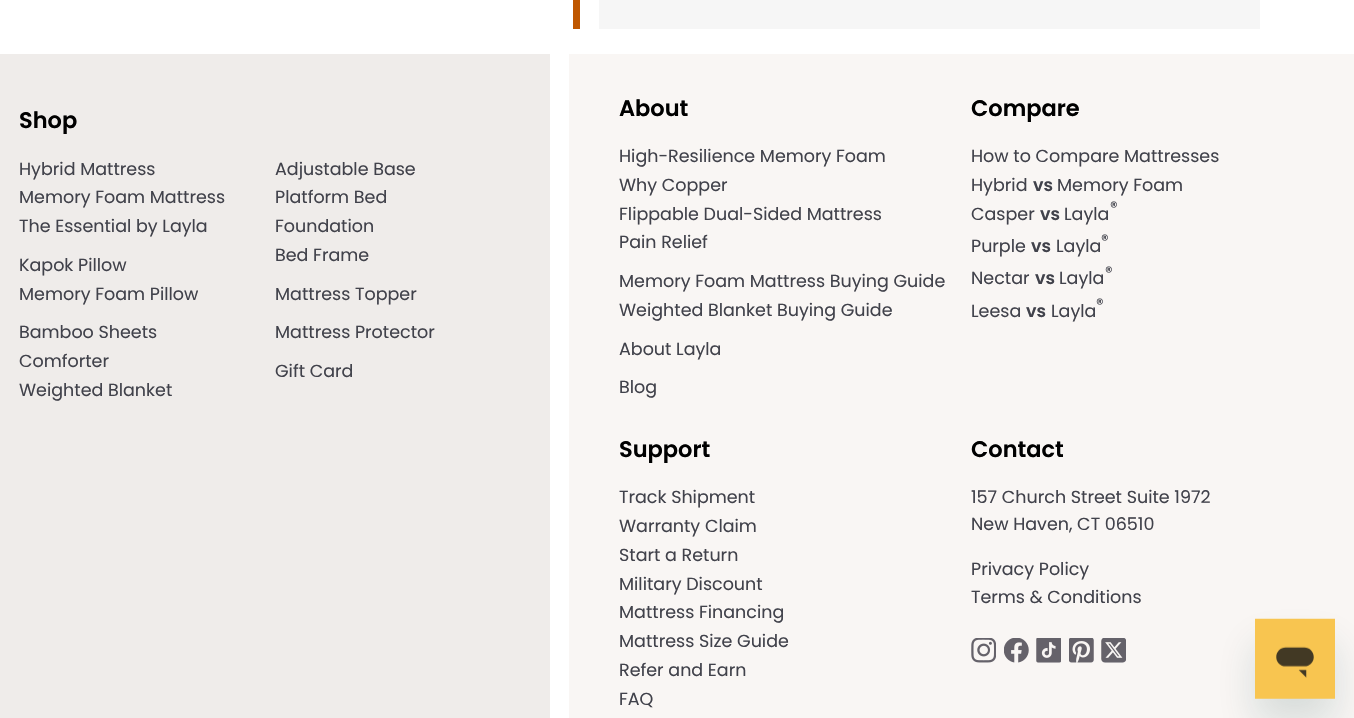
#include "include/core/SkBlurTypes.h"
#include "include/core/SkCanvas.h"
#include "include/core/SkData.h"
#include "include/core/SkFont.h"
#include "include/core/SkFontMgr.h"
#include "include/core/SkImage.h"
#include "include/core/SkMaskFilter.h"
#include "include/core/SkPaint.h"
#include "include/core/SkPathBuilder.h"
#include "include/core/SkTextBlob.h"
#include "include/effects/SkDashPathEffect.h"
#include "include/effects/SkGradientShader.h"
#include "include/utils/SkParsePath.h"

extern sk_sp<SkFontMgr> fontMgr;

void draw(SkCanvas* canvas) {
  SkPaint p;
  p.setAntiAlias(true);
  canvas->clear(SK_ColorWHITE);
  p.setColor(SkColorSetRGB(191, 87, 0));
  canvas->drawRect(SkRect::MakeLTRB(573, 0, 580, 29), p);
  p.setColor(SkColorSetRGB(246, 246, 246));
  canvas->drawRect(SkRect::MakeLTRB(599, 0, 1260, 29), p);
  p.setColor(SkColorSetRGB(249, 246, 244));
  canvas->drawRect(SkRect::MakeLTRB(569, 54, 1354, 718), p);
  p.setColor(SkColorSetRGB(239, 236, 234));
  canvas->drawRect(SkRect::MakeLTRB(0, 54, 550, 718), p);
  canvas->drawImageRect(SkImages::DeferredFromEncodedData(SkData::MakeFromFileName("images/1.png")), SkRect::MakeLTRB(971, 638, 996, 663), SkSamplingOptions());
  canvas->drawImageRect(SkImages::DeferredFromEncodedData(SkData::MakeFromFileName("images/2.png")), SkRect::MakeLTRB(1004, 638, 1029, 663), SkSamplingOptions());
  canvas->drawImageRect(SkImages::DeferredFromEncodedData(SkData::MakeFromFileName("images/3.png")), SkRect::MakeLTRB(1036, 638, 1061, 663), SkSamplingOptions());
  canvas->drawImageRect(SkImages::DeferredFromEncodedData(SkData::MakeFromFileName("images/4.png")), SkRect::MakeLTRB(1069, 638, 1094, 663), SkSamplingOptions());
  canvas->drawImageRect(SkImages::DeferredFromEncodedData(SkData::MakeFromFileName("images/5.png")), SkRect::MakeLTRB(1101, 638, 1126, 663), SkSamplingOptions());
  p.setColor(SkColorSetARGB(38, 23, 73, 77));
  p.setMaskFilter(SkMaskFilter::MakeBlur(kNormal_SkBlurStyle, 19));
  canvas->drawRect(SkRect::MakeLTRB(1255, 644, 1335, 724), p);
  p.setMaskFilter(nullptr);
  canvas->drawImageRect(SkImages::DeferredFromEncodedData(SkData::MakeFromFileName("images/6.png")), SkRect::MakeLTRB(1255, 618, 1335, 699), SkSamplingOptions());
  SkFont font1(fontMgr->matchFamilyStyle("Poppins", SkFontStyle(600, SkFontStyle::kNormal_Width, SkFontStyle::kUpright_Slant)), 22.5f);
  font1.setSubpixel(true);
  p.setColor(SK_ColorBLACK);
  canvas->drawString("Shop", 19, 128, font1, p);
  SkFont font2(fontMgr->matchFamilyStyle("Poppins", SkFontStyle::Normal()), 17.5f);
  font2.setSubpixel(true);
  p.setColor(SkColorSetRGB(65, 66, 75));
  canvas->drawString("Hybrid Mattress", 19, 175, font2, p);
  canvas->drawString("Memory Foam Mattress", 19, 203, font2, p);
  canvas->drawString("The Essential by Layla", 19, 232, font2, p);
  canvas->drawString("Kapok Pillow", 19, 271, font2, p);
  canvas->drawString("Memory Foam Pillow", 19, 300, font2, p);
  canvas->drawString("Bamboo Sheets", 19, 338, font2, p);
  canvas->drawString("Comforter", 19, 367, font2, p);
  canvas->drawString("Weighted Blanket", 19, 396, font2, p);
  canvas->drawString("Adjustable Base", 275, 175, font2, p);
  canvas->drawString("Platform Bed", 275, 203, font2, p);
  canvas->drawString("Foundation", 275, 232, font2, p);
  canvas->drawString("Bed Frame", 275, 261, font2, p);
  canvas->drawString("Mattress Topper", 275, 300, font2, p);
  canvas->drawString("Mattress Protector", 275, 338, font2, p);
  canvas->drawString("Gift Card", 275, 377, font2, p);
  p.setColor(SK_ColorBLACK);
  canvas->drawString("About", 619, 116, font1, p);
  p.setColor(SkColorSetRGB(65, 66, 75));
  canvas->drawString("High-Resilience Memory Foam", 619, 162, font2, p);
  canvas->drawString("Why Copper", 619, 191, font2, p);
  canvas->drawString("Flippable Dual-Sided Mattress", 619, 220, font2, p);
  canvas->drawString("Pain Relief", 619, 248, font2, p);
  canvas->drawString("Memory Foam Mattress Buying Guide", 619, 287, font2, p);
  canvas->drawString("Weighted Blanket Buying Guide", 619, 316, font2, p);
  canvas->drawString("About Layla", 619, 355, font2, p);
  canvas->drawString("Blog", 619, 393, font2, p);
  p.setColor(SK_ColorBLACK);
  canvas->drawString("Compare", 971, 116, font1, p);
  p.setColor(SkColorSetRGB(65, 66, 75));
  canvas->drawString("How to Compare Mattresses", 971, 162, font2, p);
  canvas->drawString("Hybrid", 971, 191, font2, p);
  SkFont font3(fontMgr->matchFamilyStyle("Poppins", SkFontStyle(600, SkFontStyle::kNormal_Width, SkFontStyle::kUpright_Slant)), 17.5f);
  font3.setSubpixel(true);
  canvas->drawString("vs", 1033, 191, font3, p);
  canvas->drawString("Memory Foam", 1057, 191, font2, p);
  SkFont font4(fontMgr->matchFamilyStyle("Poppins", SkFontStyle::Normal()), 15);
  font4.setSubpixel(true);
  canvas->drawString("®", 1110, 212, font4, p);
  canvas->drawString("Casper", 971, 220, font2, p);
  canvas->drawString("vs", 1040, 220, font3, p);
  canvas->drawString("Layla", 1064, 220, font2, p);
  canvas->drawString("®", 1101, 245, font4, p);
  canvas->drawString("Purple", 971, 252, font2, p);
  canvas->drawString("vs", 1031, 252, font3, p);
  canvas->drawString("Layla", 1056, 252, font2, p);
  canvas->drawString("®", 1105, 277, font4, p);
  canvas->drawString("Nectar", 971, 284, font2, p);
  canvas->drawString("vs", 1035, 284, font3, p);
  canvas->drawString("Layla", 1059, 284, font2, p);
  canvas->drawString("®", 1096, 309, font4, p);
  canvas->drawString("Leesa", 971, 317, font2, p);
  canvas->drawString("vs", 1026, 317, font3, p);
  canvas->drawString("Layla", 1051, 317, font2, p);
  p.setColor(SK_ColorBLACK);
  canvas->drawString("Support", 619, 457, font1, p);
  p.setColor(SkColorSetRGB(65, 66, 75));
  canvas->drawString("Track Shipment", 619, 503, font2, p);
  canvas->drawString("Warranty Claim", 619, 532, font2, p);
  canvas->drawString("Start a Return", 619, 561, font2, p);
  canvas->drawString("Military Discount", 619, 590, font2, p);
  canvas->drawString("Mattress Financing", 619, 618, font2, p);
  canvas->drawString("Mattress Size Guide", 619, 647, font2, p);
  canvas->drawString("Refer and Earn", 619, 676, font2, p);
  canvas->drawString("FAQ", 619, 705, font2, p);
  p.setColor(SK_ColorBLACK);
  canvas->drawString("Contact", 971, 457, font1, p);
  p.setColor(SkColorSetRGB(65, 66, 75));
  canvas->drawString("157 Church Street Suite 1972", 971, 503, font2, p);
  canvas->drawString("New Haven, CT 06510", 971, 530, font2, p);
  canvas->drawString("Privacy Policy", 971, 575, font2, p);
  canvas->drawString("Terms & Conditions", 971, 603, font2, p);
}
